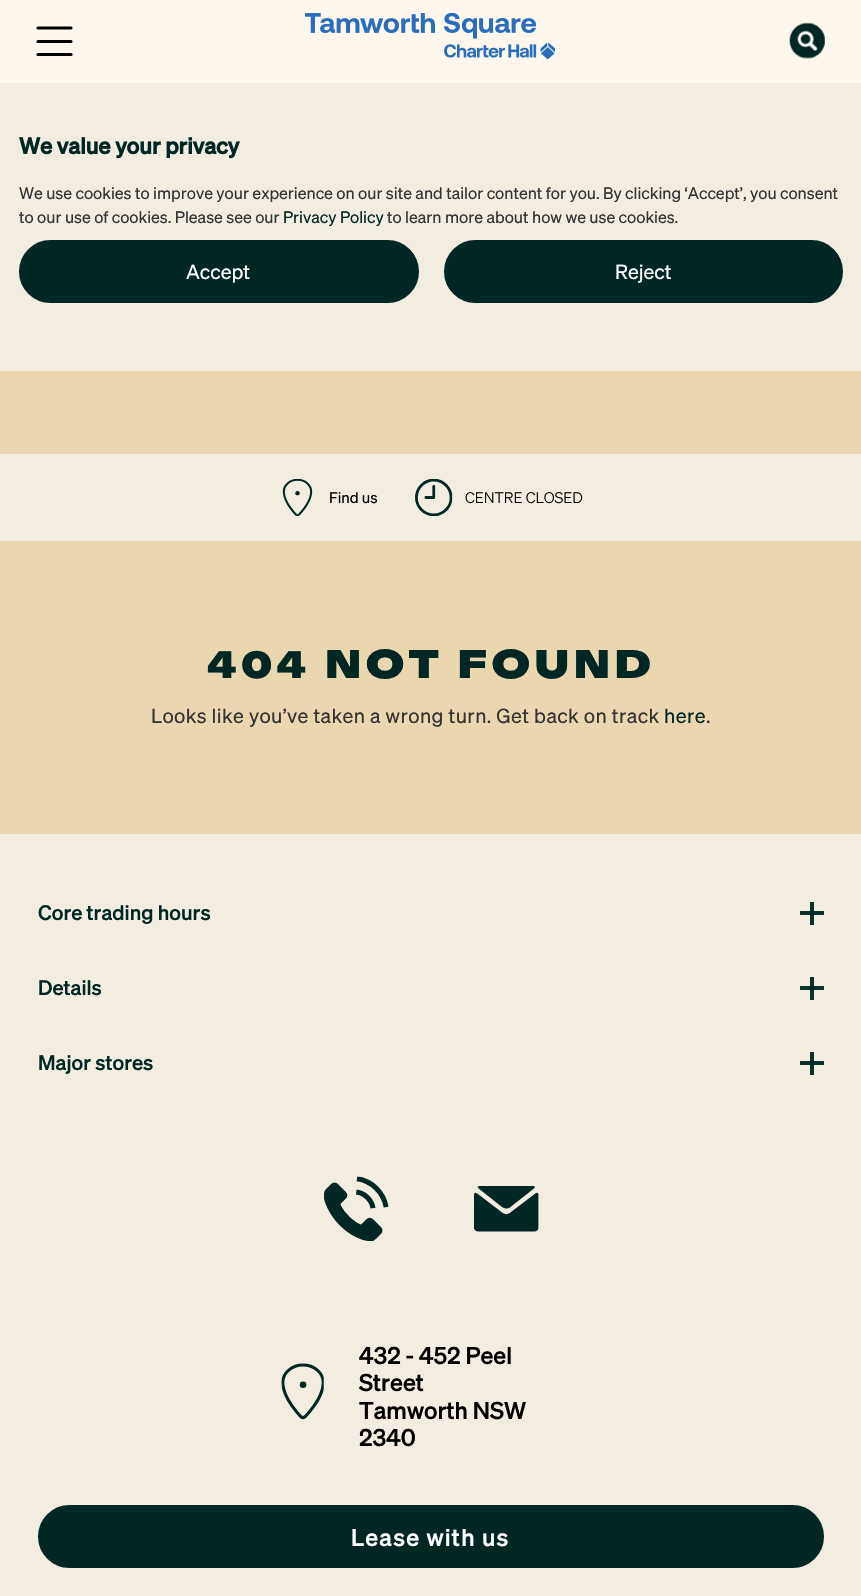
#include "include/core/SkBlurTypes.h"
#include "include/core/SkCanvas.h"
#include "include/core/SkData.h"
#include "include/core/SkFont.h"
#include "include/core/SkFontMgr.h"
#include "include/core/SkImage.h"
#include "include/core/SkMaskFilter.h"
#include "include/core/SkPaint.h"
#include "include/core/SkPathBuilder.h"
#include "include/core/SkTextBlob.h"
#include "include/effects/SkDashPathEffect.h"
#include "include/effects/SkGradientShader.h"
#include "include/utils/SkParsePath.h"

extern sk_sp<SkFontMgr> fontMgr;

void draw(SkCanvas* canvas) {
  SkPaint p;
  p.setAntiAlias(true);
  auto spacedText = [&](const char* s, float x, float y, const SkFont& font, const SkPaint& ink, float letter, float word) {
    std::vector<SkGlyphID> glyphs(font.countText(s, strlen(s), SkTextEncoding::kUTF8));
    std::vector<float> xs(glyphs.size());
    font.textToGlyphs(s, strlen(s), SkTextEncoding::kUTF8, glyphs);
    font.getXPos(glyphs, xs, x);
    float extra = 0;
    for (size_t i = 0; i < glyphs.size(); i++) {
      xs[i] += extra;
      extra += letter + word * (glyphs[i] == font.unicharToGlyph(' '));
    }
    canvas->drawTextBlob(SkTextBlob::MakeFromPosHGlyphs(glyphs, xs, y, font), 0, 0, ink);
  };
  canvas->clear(SkColorSetRGB(234, 215, 176));
  p.setColor(SkColorSetRGB(242, 236, 225));
  canvas->drawRect(SkRect::MakeLTRB(0, 83, 861, 371), p);
  p.setColor(SkColorSetRGB(0, 39, 36));
  canvas->drawRoundRect(SkRect::MakeLTRB(20.5f, 241.5f, 417.5f, 301.5f), 30, 30, p);
  p.setStyle(SkPaint::kStroke_Style);
  p.setStrokeWidth(3);
  canvas->drawRoundRect(SkRect::MakeLTRB(20.5f, 241.5f, 417.5f, 301.5f), 30, 30, p);
  p.setStyle(SkPaint::kFill_Style);
  canvas->drawRoundRect(SkRect::MakeLTRB(445.5f, 241.5f, 841.5f, 301.5f), 30, 30, p);
  p.setStyle(SkPaint::kStroke_Style);
  canvas->drawRoundRect(SkRect::MakeLTRB(445.5f, 241.5f, 841.5f, 301.5f), 30, 30, p);
  p.setStyle(SkPaint::kFill_Style);
  p.setColor(SkColorSetRGB(254, 247, 237));
  canvas->drawRect(SkRect::MakeLTRB(0, 0, 861, 83), p);
  p.setStyle(SkPaint::kStroke_Style);
  p.setStrokeWidth(3.1f);
  p.setStrokeCap(SkPaint::kRound_Cap);
  p.setColor(SK_ColorBLACK);
  canvas->drawPath(SkPathBuilder().moveTo(38, 28).lineTo(71, 28).moveTo(38, 41.5f).lineTo(71, 41.5f).detach(), p);
  canvas->save();
  canvas->clipRect(SkRect::MakeLTRB(36, 26, 73, 56));
  canvas->drawPath(SkPathBuilder().moveTo(38, 54.5f).lineTo(71, 54.5f).detach(), p);
  canvas->restore();
  canvas->drawImageRect(SkImages::DeferredFromEncodedData(SkData::MakeFromFileName("images/1.png")), SkRect::MakeLTRB(305, 13, 555, 60), SkSamplingOptions());
  canvas->drawImageRect(SkImages::DeferredFromEncodedData(SkData::MakeFromFileName("images/2.png")), SkRect::MakeLTRB(789, 22, 825, 59), SkSamplingOptions());
  p.setStyle(SkPaint::kFill_Style);
  p.setColor(SkColorSetRGB(242, 236, 225));
  canvas->drawRect(SkRect::MakeLTRB(0, 454, 861, 541), p);
  canvas->drawImageRect(SkImages::DeferredFromEncodedData(SkData::MakeFromFileName("images/3.png")), SkRect::MakeLTRB(282, 479, 313, 516), SkSamplingOptions());
  canvas->drawImageRect(SkImages::DeferredFromEncodedData(SkData::MakeFromFileName("images/4.png")), SkRect::MakeLTRB(415, 479, 453, 516), SkSamplingOptions());
  canvas->drawRect(SkRect::MakeLTRB(0, 834, 861, 1596), p);
  p.setColor(SkColorSetRGB(12, 49, 45));
  canvas->drawRect(SkRect::MakeLTRB(810, 1052, 814, 1075), p);
  canvas->drawRect(SkRect::MakeLTRB(810, 977, 814, 1000), p);
  canvas->drawRect(SkRect::MakeLTRB(810, 902, 814, 925), p);
  canvas->drawRect(SkRect::MakeLTRB(800, 911, 824, 915), p);
  p.setColor(SkColorSetRGB(1, 40, 36));
  canvas->drawRect(SkRect::MakeLTRB(810, 911, 814, 915), p);
  p.setColor(SkColorSetRGB(12, 49, 45));
  canvas->drawRect(SkRect::MakeLTRB(800, 986, 824, 990), p);
  p.setColor(SkColorSetRGB(1, 40, 36));
  canvas->drawRect(SkRect::MakeLTRB(810, 986, 814, 990), p);
  p.setColor(SkColorSetRGB(12, 49, 45));
  canvas->drawRect(SkRect::MakeLTRB(800, 1061, 824, 1065), p);
  p.setColor(SkColorSetRGB(1, 40, 36));
  canvas->drawRect(SkRect::MakeLTRB(810, 1061, 814, 1065), p);
  canvas->drawImageRect(SkImages::DeferredFromEncodedData(SkData::MakeFromFileName("images/5.png")), SkRect::MakeLTRB(324, 1176, 389, 1241), SkSamplingOptions());
  canvas->drawImageRect(SkImages::DeferredFromEncodedData(SkData::MakeFromFileName("images/6.png")), SkRect::MakeLTRB(474, 1186, 539, 1232), SkSamplingOptions());
  canvas->drawImageRect(SkImages::DeferredFromEncodedData(SkData::MakeFromFileName("images/7.png")), SkRect::MakeLTRB(281, 1363, 324, 1420), SkSamplingOptions());
  p.setColor(SkColorSetRGB(0, 39, 36));
  canvas->drawRoundRect(SkRect::MakeLTRB(39.5f, 1506.5f, 822.5f, 1566.5f), 30, 30, p);
  p.setStyle(SkPaint::kStroke_Style);
  p.setStrokeWidth(3);
  p.setStrokeCap(SkPaint::kButt_Cap);
  canvas->drawRoundRect(SkRect::MakeLTRB(39.5f, 1506.5f, 822.5f, 1566.5f), 30, 30, p);
  SkFont font1(fontMgr->matchFamilyStyle("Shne", SkFontStyle::Bold()), 22.5f);
  font1.setSubpixel(true);
  p.setStyle(SkPaint::kFill_Style);
  canvas->drawString("We value your privacy", 19, 154, font1, p);
  SkFont font2(fontMgr->matchFamilyStyle("Shne", SkFontStyle::Normal()), 16.25f);
  font2.setSubpixel(true);
  p.setColor(SkColorSetRGB(51, 51, 51));
  canvas->drawString("We use cookies to improve your experience on our site and tailor content for you. By clicking ‘Accept’, you consent", 19, 199, font2, p);
  canvas->drawString("to our use of cookies. Please see our", 19, 223, font2, p);
  p.setColor(SkColorSetRGB(0, 39, 36));
  canvas->drawString("Privacy Policy", 283, 223, font2, p);
  p.setColor(SkColorSetRGB(51, 51, 51));
  canvas->drawString("to learn more about how we use cookies.", 387, 223, font2, p);
  SkFont font3(fontMgr->matchFamilyStyle("Shne", SkFontStyle::Normal()), 20);
  font3.setSubpixel(true);
  p.setColor(SK_ColorWHITE);
  canvas->drawString("Accept", 186, 279, font3, p);
  canvas->drawString("Reject", 615, 279, font3, p);
  SkFont font4(fontMgr->matchFamilyStyle("Shne", SkFontStyle::Normal()), 15);
  font4.setSubpixel(true);
  p.setColor(SK_ColorBLACK);
  canvas->drawString("Find us", 329, 503, font4, p);
  SkFont font5(fontMgr->matchFamilyStyle("Shne", SkFontStyle(300, SkFontStyle::kNormal_Width, SkFontStyle::kUpright_Slant)), 15);
  font5.setSubpixel(true);
  canvas->drawString("CENTRE CLOSED", 465, 503, font5, p);
  SkFont font6(fontMgr->matchFamilyStyle("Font", SkFontStyle::Bold()), 40);
  font6.setSubpixel(true);
  p.setColor(SkColorSetRGB(0, 39, 36));
  spacedText("404 NOT FOUND", 207, 678, font6, p, 4, 0);
  p.setColor(SkColorSetRGB(51, 51, 51));
  spacedText("Looks like you’ve taken a wrong turn. Get back on track", 151, 723, font3, p, 0.4f, 0);
  p.setColor(SkColorSetRGB(0, 39, 36));
  spacedText("here", 664, 723, font3, p, 0.4f, 0);
  p.setColor(SkColorSetRGB(51, 51, 51));
  spacedText(".", 706, 723, font3, p, 0.4f, 0);
  SkFont font7(fontMgr->matchFamilyStyle("Shne", SkFontStyle(500, SkFontStyle::kNormal_Width, SkFontStyle::kUpright_Slant)), 20.6f);
  font7.setSubpixel(true);
  p.setColor(SkColorSetRGB(0, 39, 36));
  canvas->drawString("Core trading hours", 38, 920, font7, p);
  canvas->drawString("Details", 38, 995, font7, p);
  canvas->drawString("Major stores", 38, 1070, font7, p);
  SkFont font8(fontMgr->matchFamilyStyle("Shne", SkFontStyle(500, SkFontStyle::kNormal_Width, SkFontStyle::kUpright_Slant)), 23.75f);
  font8.setSubpixel(true);
  p.setColor(SK_ColorBLACK);
  canvas->drawString("432 - 452 Peel", 359, 1364, font8, p);
  canvas->drawString("Street", 359, 1391, font8, p);
  canvas->drawString("Tamworth NSW", 359, 1419, font8, p);
  canvas->drawString("2340", 359, 1446, font8, p);
  p.setColor(SK_ColorWHITE);
  spacedText("Lease with us", 351, 1546, font8, p, 1.25f, 0);
}
